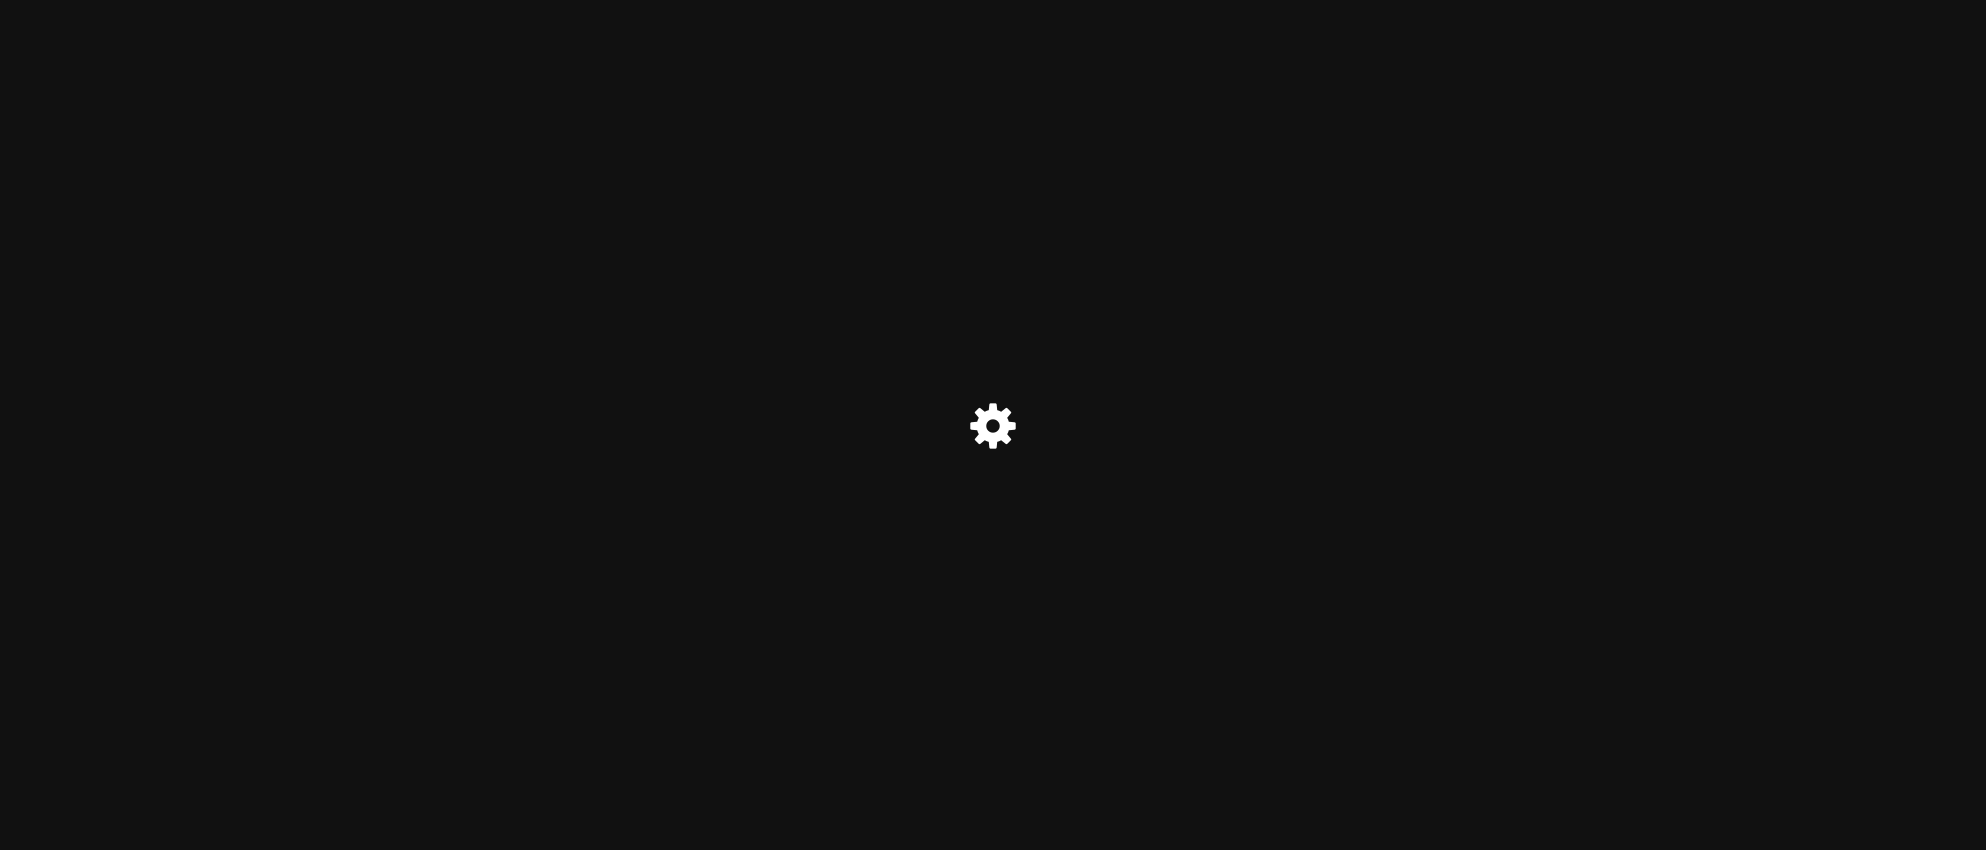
#include "include/core/SkBlurTypes.h"
#include "include/core/SkCanvas.h"
#include "include/core/SkData.h"
#include "include/core/SkFont.h"
#include "include/core/SkFontMgr.h"
#include "include/core/SkImage.h"
#include "include/core/SkMaskFilter.h"
#include "include/core/SkPaint.h"
#include "include/core/SkPathBuilder.h"
#include "include/core/SkTextBlob.h"
#include "include/effects/SkDashPathEffect.h"
#include "include/effects/SkGradientShader.h"
#include "include/utils/SkParsePath.h"

extern sk_sp<SkFontMgr> fontMgr;

void draw(SkCanvas* canvas) {
  SkPaint p;
  p.setAntiAlias(true);
  canvas->clear(SkColorSetRGB(17, 17, 17));
  canvas->drawImageRect(SkImages::DeferredFromEncodedData(SkData::MakeFromFileName("images/1.png")), SkRect::MakeLTRB(970, 403, 1016, 449), SkSamplingOptions());
}
